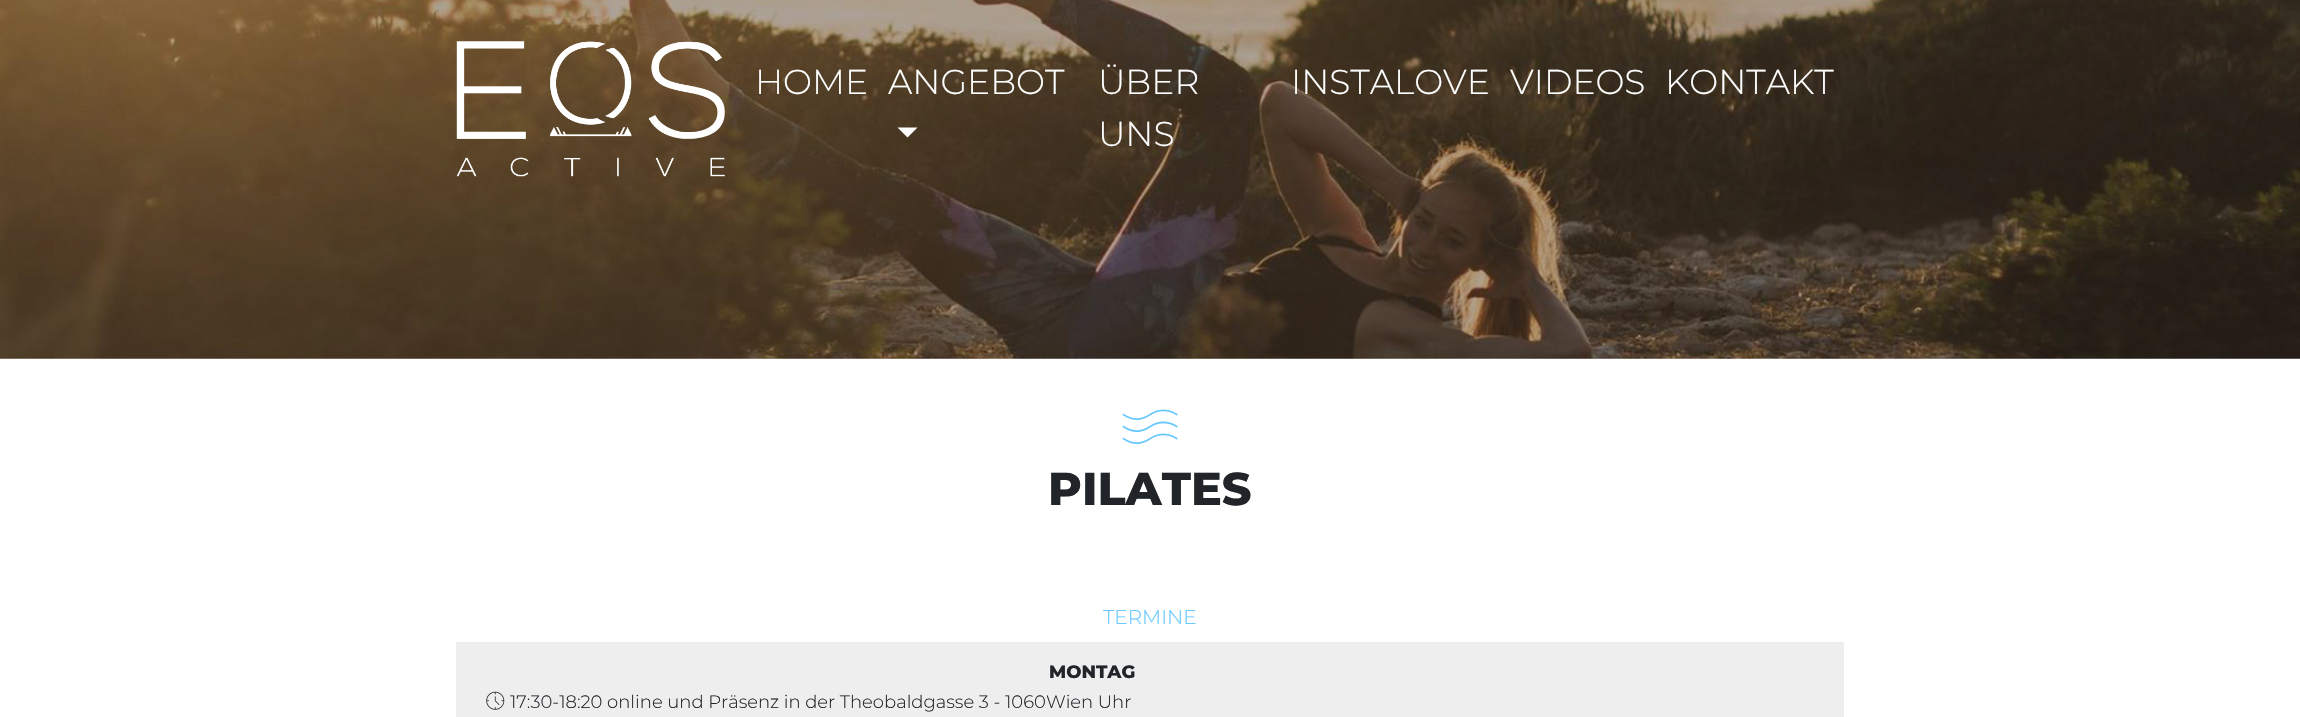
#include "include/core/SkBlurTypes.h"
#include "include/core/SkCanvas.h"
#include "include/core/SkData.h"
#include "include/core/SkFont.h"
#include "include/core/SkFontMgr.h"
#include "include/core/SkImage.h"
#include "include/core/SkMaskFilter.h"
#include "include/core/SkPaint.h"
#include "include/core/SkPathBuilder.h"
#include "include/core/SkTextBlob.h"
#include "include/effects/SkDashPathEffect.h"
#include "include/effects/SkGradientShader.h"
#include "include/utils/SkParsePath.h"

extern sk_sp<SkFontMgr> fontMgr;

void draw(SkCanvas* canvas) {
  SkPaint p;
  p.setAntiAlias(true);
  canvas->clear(SK_ColorWHITE);
  canvas->drawImageRect(SkImages::DeferredFromEncodedData(SkData::MakeFromFileName("images/2.png")), SkRect::MakeLTRB(0, 0, 2300, 359), SkSamplingOptions());
  canvas->drawImageRect(SkImages::DeferredFromEncodedData(SkData::MakeFromFileName("images/1.png")), SkRect::MakeLTRB(456, 41, 725, 177), SkSamplingOptions());
  p.setColor(SK_ColorWHITE);
  canvas->drawPath(SkPathBuilder().moveTo(897.5f, 127.5f).lineTo(917.5f, 127.5f).lineTo(907.5f, 137.5f).close().detach(), p);
  canvas->drawImageRect(SkImages::DeferredFromEncodedData(SkData::MakeFromFileName("images/3.png")), SkRect::MakeLTRB(1122, 409, 1178, 445), SkSamplingOptions());
  p.setColor(SkColorSetRGB(238, 238, 238));
  canvas->drawRect(SkRect::MakeLTRB(456, 642, 1844, 717), p);
  canvas->drawImageRect(SkImages::DeferredFromEncodedData(SkData::MakeFromFileName("images/4.png")), SkRect::MakeLTRB(486, 691, 505, 710), SkSamplingOptions());
  SkFont font1(fontMgr->matchFamilyStyle("Montserrat", SkFontStyle(300, SkFontStyle::kNormal_Width, SkFontStyle::kUpright_Slant)), 34.5f);
  font1.setSubpixel(true);
  p.setColor(SK_ColorWHITE);
  canvas->drawString("HOME", 755, 94, font1, p);
  canvas->drawString("ANGEBOT", 888, 94, font1, p);
  canvas->drawString("ÜBER", 1098, 94, font1, p);
  canvas->drawString("UNS", 1098, 146, font1, p);
  canvas->drawString("INSTALOVE", 1291, 94, font1, p);
  canvas->drawString("VIDEOS", 1510, 94, font1, p);
  canvas->drawString("KONTAKT", 1665, 94, font1, p);
  SkFont font2(fontMgr->matchFamilyStyle("Montserrat", SkFontStyle(800, SkFontStyle::kNormal_Width, SkFontStyle::kUpright_Slant)), 46);
  font2.setSubpixel(true);
  p.setColor(SkColorSetRGB(33, 37, 41));
  canvas->drawString("PILATES", 1048, 505, font2, p);
  SkFont font3(fontMgr->matchFamilyStyle("Montserrat", SkFontStyle(300, SkFontStyle::kNormal_Width, SkFontStyle::kUpright_Slant)), 20);
  font3.setSubpixel(true);
  p.setColor(SkColorSetRGB(105, 201, 255));
  canvas->drawString("TERMINE", 1103, 624, font3, p);
  SkFont font4(fontMgr->matchFamilyStyle("Montserrat", SkFontStyle(800, SkFontStyle::kNormal_Width, SkFontStyle::kUpright_Slant)), 18);
  font4.setSubpixel(true);
  p.setColor(SkColorSetRGB(33, 37, 41));
  canvas->drawString("MONTAG", 1049, 678, font4, p);
  SkFont font5(fontMgr->matchFamilyStyle("Montserrat", SkFontStyle(300, SkFontStyle::kNormal_Width, SkFontStyle::kUpright_Slant)), 18);
  font5.setSubpixel(true);
  canvas->drawString("17:30-18:20 online und Präsenz in der Theobaldgasse 3 -", 510, 708, font5, p);
  canvas->drawString("1060Wien Uhr", 1005, 708, font5, p);
}
